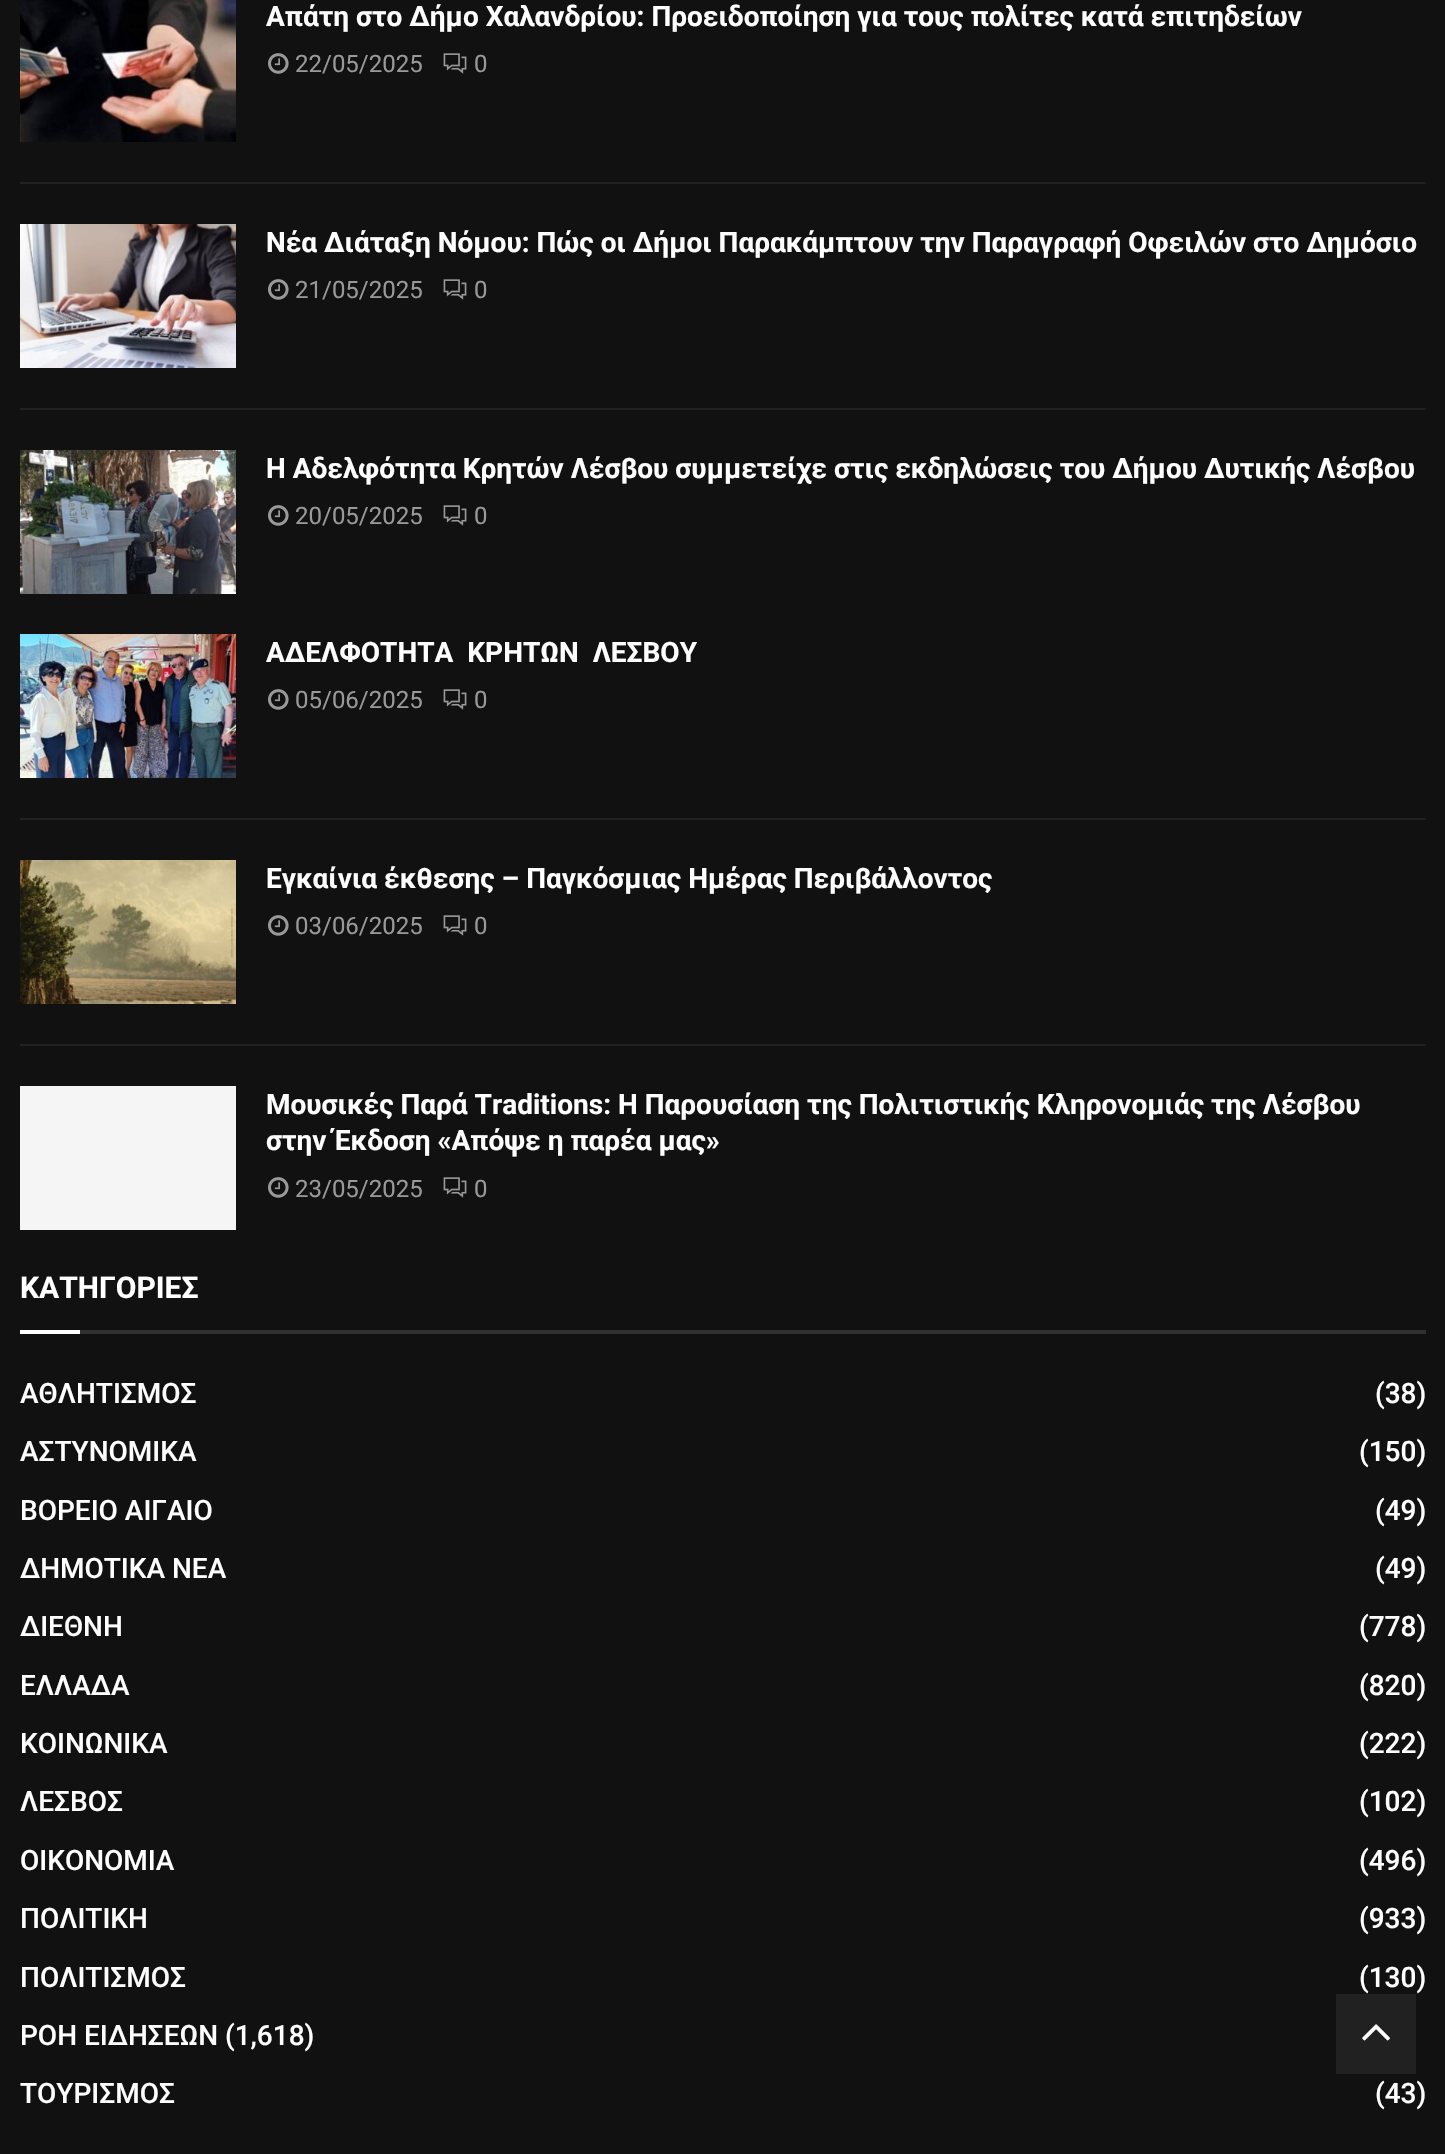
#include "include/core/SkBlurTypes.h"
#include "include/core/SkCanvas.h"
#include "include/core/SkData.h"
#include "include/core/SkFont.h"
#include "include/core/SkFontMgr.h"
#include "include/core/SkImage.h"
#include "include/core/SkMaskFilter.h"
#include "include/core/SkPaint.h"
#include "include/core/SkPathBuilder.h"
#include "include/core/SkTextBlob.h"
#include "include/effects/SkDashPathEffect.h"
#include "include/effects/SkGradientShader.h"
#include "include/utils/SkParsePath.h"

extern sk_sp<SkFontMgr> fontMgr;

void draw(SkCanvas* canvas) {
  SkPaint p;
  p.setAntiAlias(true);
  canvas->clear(SkColorSetRGB(17, 17, 17));
  p.setColor(SkColorSetRGB(33, 33, 33));
  canvas->drawRect(SkRect::MakeLTRB(20, 182, 1426, 184), p);
  canvas->drawImageRect(SkImages::DeferredFromEncodedData(SkData::MakeFromFileName("images/1.png")), SkRect::MakeLTRB(20, 0, 236, 142), SkSamplingOptions());
  canvas->drawImageRect(SkImages::DeferredFromEncodedData(SkData::MakeFromFileName("images/2.png")), SkRect::MakeLTRB(268, 53, 289, 74), SkSamplingOptions());
  canvas->drawImageRect(SkImages::DeferredFromEncodedData(SkData::MakeFromFileName("images/3.png")), SkRect::MakeLTRB(443, 53, 467, 74), SkSamplingOptions());
  canvas->drawRect(SkRect::MakeLTRB(20, 408, 1426, 410), p);
  canvas->drawImageRect(SkImages::DeferredFromEncodedData(SkData::MakeFromFileName("images/4.png")), SkRect::MakeLTRB(20, 224, 236, 368), SkSamplingOptions());
  canvas->drawImageRect(SkImages::DeferredFromEncodedData(SkData::MakeFromFileName("images/2.png")), SkRect::MakeLTRB(268, 279, 289, 300), SkSamplingOptions());
  canvas->drawImageRect(SkImages::DeferredFromEncodedData(SkData::MakeFromFileName("images/3.png")), SkRect::MakeLTRB(443, 279, 467, 300), SkSamplingOptions());
  canvas->drawImageRect(SkImages::DeferredFromEncodedData(SkData::MakeFromFileName("images/5.png")), SkRect::MakeLTRB(20, 450, 236, 594), SkSamplingOptions());
  canvas->drawImageRect(SkImages::DeferredFromEncodedData(SkData::MakeFromFileName("images/2.png")), SkRect::MakeLTRB(268, 505, 289, 526), SkSamplingOptions());
  canvas->drawImageRect(SkImages::DeferredFromEncodedData(SkData::MakeFromFileName("images/3.png")), SkRect::MakeLTRB(443, 505, 467, 526), SkSamplingOptions());
  canvas->drawRect(SkRect::MakeLTRB(20, 818, 1426, 820), p);
  canvas->drawImageRect(SkImages::DeferredFromEncodedData(SkData::MakeFromFileName("images/6.png")), SkRect::MakeLTRB(20, 634, 236, 778), SkSamplingOptions());
  canvas->drawImageRect(SkImages::DeferredFromEncodedData(SkData::MakeFromFileName("images/2.png")), SkRect::MakeLTRB(268, 689, 289, 710), SkSamplingOptions());
  canvas->drawImageRect(SkImages::DeferredFromEncodedData(SkData::MakeFromFileName("images/3.png")), SkRect::MakeLTRB(443, 689, 467, 710), SkSamplingOptions());
  canvas->drawRect(SkRect::MakeLTRB(20, 1044, 1426, 1046), p);
  canvas->drawImageRect(SkImages::DeferredFromEncodedData(SkData::MakeFromFileName("images/7.png")), SkRect::MakeLTRB(20, 860, 236, 1004), SkSamplingOptions());
  canvas->drawImageRect(SkImages::DeferredFromEncodedData(SkData::MakeFromFileName("images/2.png")), SkRect::MakeLTRB(268, 915, 289, 936), SkSamplingOptions());
  canvas->drawImageRect(SkImages::DeferredFromEncodedData(SkData::MakeFromFileName("images/3.png")), SkRect::MakeLTRB(443, 915, 467, 936), SkSamplingOptions());
  p.setColor(SkColorSetRGB(245, 245, 245));
  canvas->drawRect(SkRect::MakeLTRB(20, 1086, 236, 1230), p);
  canvas->drawImageRect(SkImages::DeferredFromEncodedData(SkData::MakeFromFileName("images/2.png")), SkRect::MakeLTRB(268, 1177, 289, 1198), SkSamplingOptions());
  canvas->drawImageRect(SkImages::DeferredFromEncodedData(SkData::MakeFromFileName("images/3.png")), SkRect::MakeLTRB(443, 1177, 467, 1198), SkSamplingOptions());
  p.setColor(SkColorSetRGB(49, 49, 49));
  canvas->drawRect(SkRect::MakeLTRB(80, 1330, 1426, 1334), p);
  p.setColor(SK_ColorWHITE);
  canvas->drawRect(SkRect::MakeLTRB(20, 1330, 80, 1334), p);
  p.setColor(SkColorSetRGB(33, 33, 33));
  canvas->drawRect(SkRect::MakeLTRB(1336, 1994, 1416, 2074), p);
  canvas->drawImageRect(SkImages::DeferredFromEncodedData(SkData::MakeFromFileName("images/8.png")), SkRect::MakeLTRB(1362, 2024, 1390, 2041), SkSamplingOptions());
  SkFont font1(fontMgr->matchFamilyStyle("Roboto", SkFontStyle::Bold()), 28);
  font1.setSubpixel(true);
  p.setColor(SK_ColorWHITE);
  canvas->drawString("Απάτη στο Δήμο Χαλανδρίου: Προειδοποίηση για τους πολίτες κατά επιτηδείων", 266, 26, font1, p);
  SkFont font2(fontMgr->matchFamilyStyle("Roboto", SkFontStyle::Normal()), 24);
  font2.setSubpixel(true);
  p.setColor(SkColorSetRGB(153, 153, 153));
  canvas->drawString("22/05/2025", 295, 72, font2, p);
  canvas->drawString("0", 474, 72, font2, p);
  p.setColor(SK_ColorWHITE);
  canvas->drawString("Νέα Διάταξη Νόμου: Πώς οι Δήμοι Παρακάμπτουν την Παραγραφή Οφειλών στο Δημόσιο", 266, 252, font1, p);
  p.setColor(SkColorSetRGB(153, 153, 153));
  canvas->drawString("21/05/2025", 295, 298, font2, p);
  canvas->drawString("0", 474, 298, font2, p);
  p.setColor(SK_ColorWHITE);
  canvas->drawString("Η Αδελφότητα Κρητών Λέσβου συμμετείχε στις εκδηλώσεις του Δήμου Δυτικής Λέσβου", 266, 478, font1, p);
  p.setColor(SkColorSetRGB(153, 153, 153));
  canvas->drawString("20/05/2025", 295, 524, font2, p);
  canvas->drawString("0", 474, 524, font2, p);
  p.setColor(SK_ColorWHITE);
  canvas->drawString("ΑΔΕΛΦΟΤΗΤΑ  ΚΡΗΤΩΝ  ΛΕΣΒΟΥ", 266, 662, font1, p);
  p.setColor(SkColorSetRGB(153, 153, 153));
  canvas->drawString("05/06/2025", 295, 708, font2, p);
  canvas->drawString("0", 474, 708, font2, p);
  p.setColor(SK_ColorWHITE);
  canvas->drawString("Εγκαίνια έκθεσης – Παγκόσμιας Ημέρας Περιβάλλοντος", 266, 888, font1, p);
  p.setColor(SkColorSetRGB(153, 153, 153));
  canvas->drawString("03/06/2025", 295, 934, font2, p);
  canvas->drawString("0", 474, 934, font2, p);
  p.setColor(SK_ColorWHITE);
  canvas->drawString("Μουσικές Παρά Traditions: Η Παρουσίαση της Πολιτιστικής Κληρονομιάς της Λέσβου", 266, 1114, font1, p);
  canvas->drawString("στην Έκδοση «Απόψε η παρέα μας»", 266, 1150, font1, p);
  p.setColor(SkColorSetRGB(153, 153, 153));
  canvas->drawString("23/05/2025", 295, 1197, font2, p);
  canvas->drawString("0", 474, 1197, font2, p);
  SkFont font3(fontMgr->matchFamilyStyle("Roboto", SkFontStyle::Bold()), 30);
  font3.setSubpixel(true);
  p.setColor(SK_ColorWHITE);
  canvas->drawString("ΚΑΤΗΓΟΡΙΕΣ", 20, 1298, font3, p);
  SkFont font4(fontMgr->matchFamilyStyle("Roboto", SkFontStyle(500, SkFontStyle::kNormal_Width, SkFontStyle::kUpright_Slant)), 28);
  font4.setSubpixel(true);
  canvas->drawString("ΑΘΛΗΤΙΣΜΟΣ", 20, 1403, font4, p);
  canvas->drawString("(38)", 1375, 1403, font4, p);
  canvas->drawString("ΑΣΤΥΝΟΜΙΚΑ", 20, 1461, font4, p);
  canvas->drawString("(150)", 1359, 1461, font4, p);
  canvas->drawString("ΒΟΡΕΙΟ ΑΙΓΑΙΟ", 20, 1520, font4, p);
  canvas->drawString("(49)", 1375, 1520, font4, p);
  canvas->drawString("ΔΗΜΟΤΙΚΑ ΝΕΑ", 20, 1578, font4, p);
  canvas->drawString("(49)", 1375, 1578, font4, p);
  canvas->drawString("ΔΙΕΘΝΗ", 20, 1636, font4, p);
  canvas->drawString("(778)", 1359, 1636, font4, p);
  canvas->drawString("ΕΛΛΑΔΑ", 20, 1695, font4, p);
  canvas->drawString("(820)", 1359, 1695, font4, p);
  canvas->drawString("ΚΟΙΝΩΝΙΚΑ", 20, 1753, font4, p);
  canvas->drawString("(222)", 1359, 1753, font4, p);
  canvas->drawString("ΛΕΣΒΟΣ", 20, 1811, font4, p);
  canvas->drawString("(102)", 1359, 1811, font4, p);
  canvas->drawString("ΟΙΚΟΝΟΜΙΑ", 20, 1870, font4, p);
  canvas->drawString("(496)", 1359, 1870, font4, p);
  canvas->drawString("ΠΟΛΙΤΙΚΗ", 20, 1928, font4, p);
  canvas->drawString("(933)", 1359, 1928, font4, p);
  canvas->drawString("ΠΟΛΙΤΙΣΜΟΣ", 20, 1987, font4, p);
  canvas->drawString("(130)", 1359, 1987, font4, p);
  canvas->drawString("ΡΟΗ ΕΙΔΗΣΕΩΝ", 20, 2045, font4, p);
  canvas->drawString("(1,618)", 225, 2045, font4, p);
  canvas->drawString("ΤΟΥΡΙΣΜΟΣ", 20, 2103, font4, p);
  canvas->drawString("(43)", 1375, 2103, font4, p);
}
